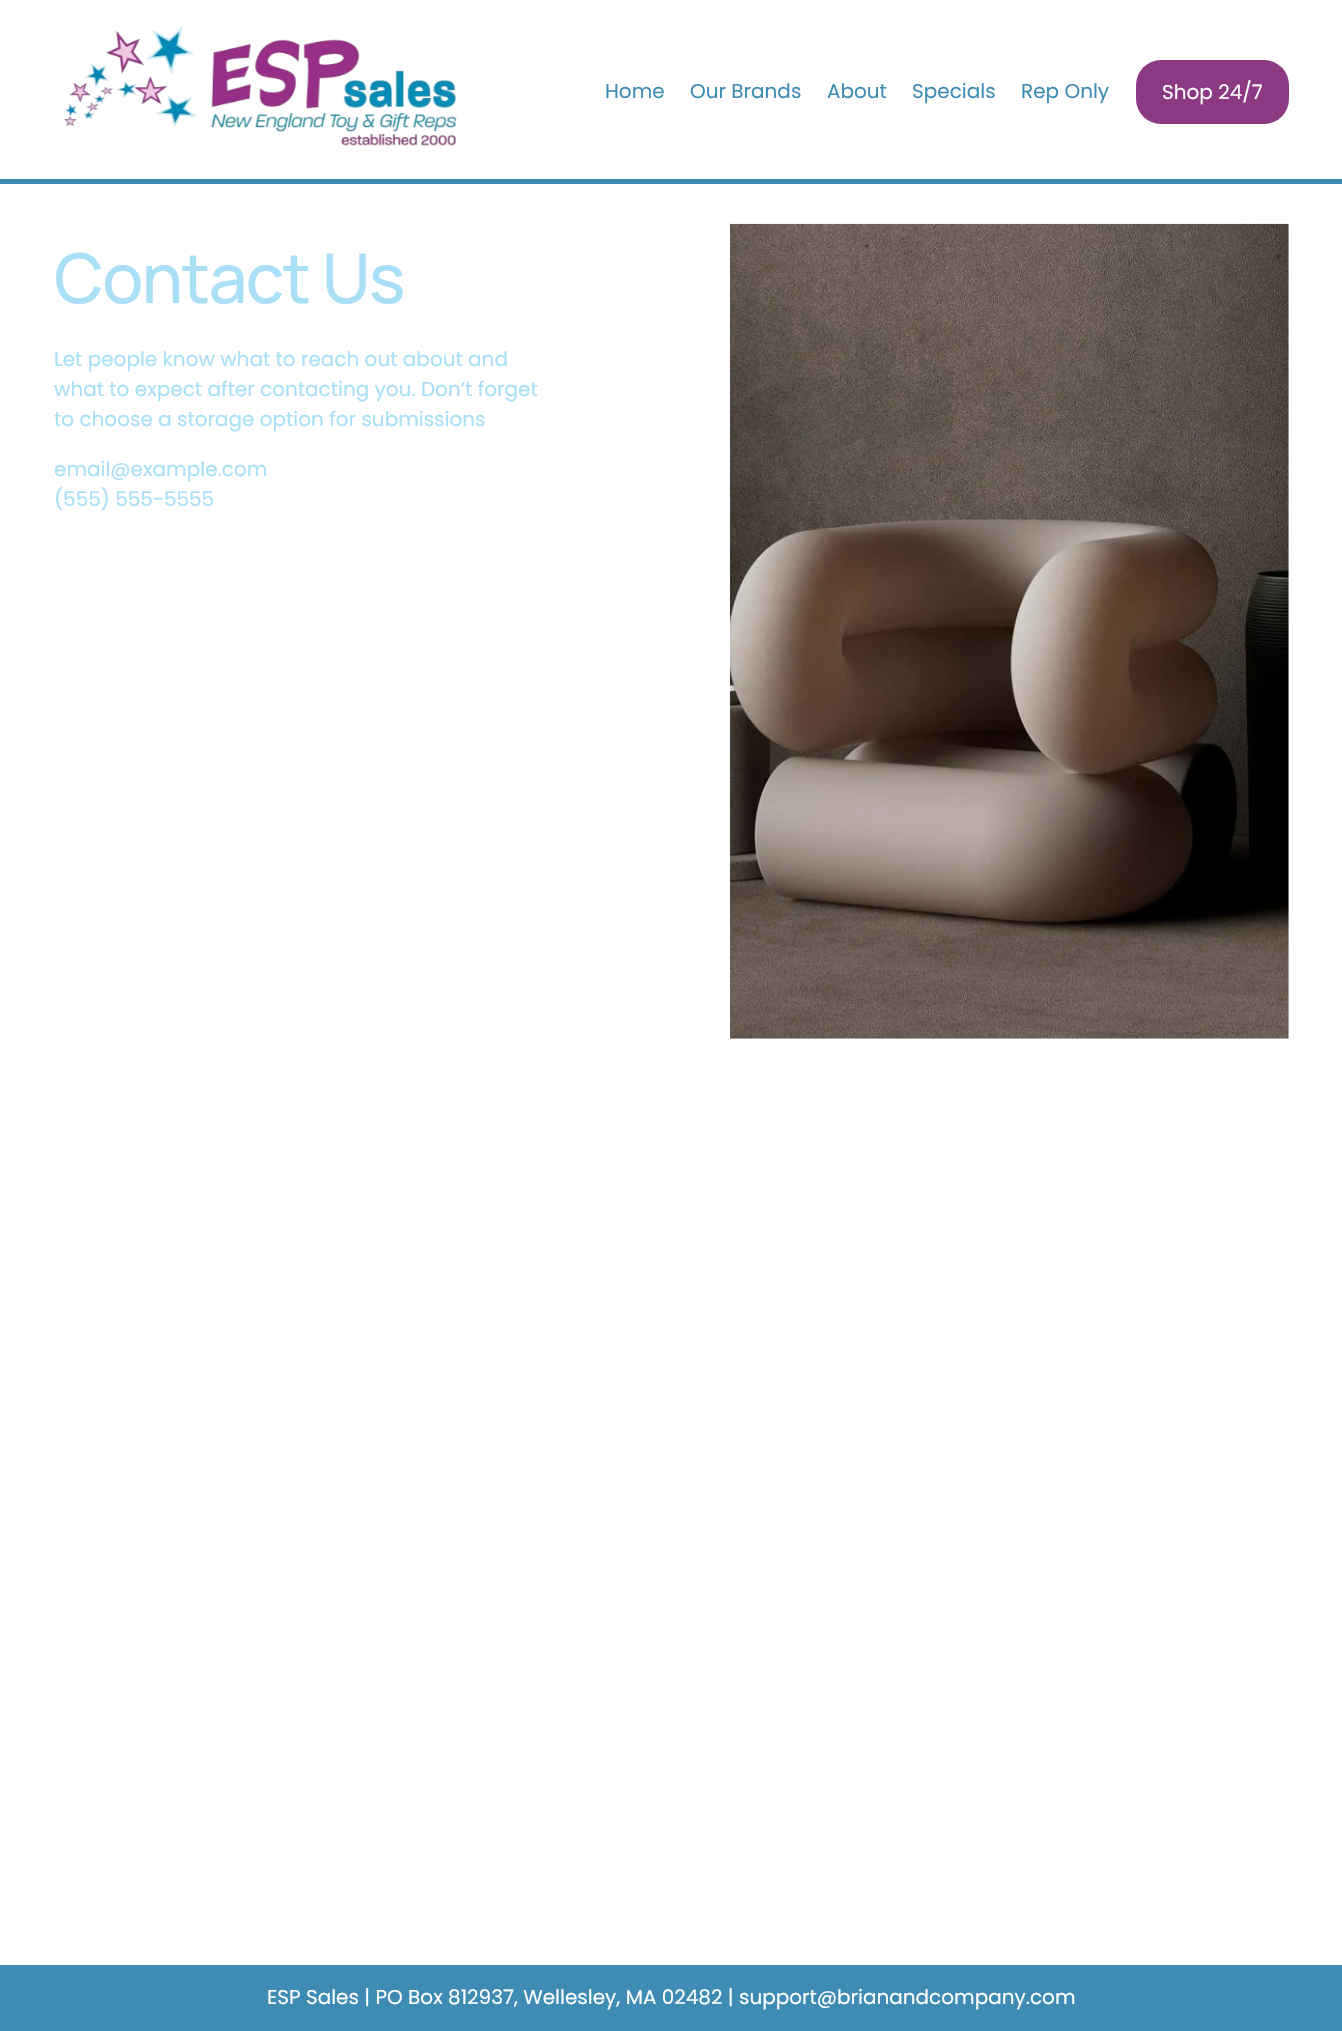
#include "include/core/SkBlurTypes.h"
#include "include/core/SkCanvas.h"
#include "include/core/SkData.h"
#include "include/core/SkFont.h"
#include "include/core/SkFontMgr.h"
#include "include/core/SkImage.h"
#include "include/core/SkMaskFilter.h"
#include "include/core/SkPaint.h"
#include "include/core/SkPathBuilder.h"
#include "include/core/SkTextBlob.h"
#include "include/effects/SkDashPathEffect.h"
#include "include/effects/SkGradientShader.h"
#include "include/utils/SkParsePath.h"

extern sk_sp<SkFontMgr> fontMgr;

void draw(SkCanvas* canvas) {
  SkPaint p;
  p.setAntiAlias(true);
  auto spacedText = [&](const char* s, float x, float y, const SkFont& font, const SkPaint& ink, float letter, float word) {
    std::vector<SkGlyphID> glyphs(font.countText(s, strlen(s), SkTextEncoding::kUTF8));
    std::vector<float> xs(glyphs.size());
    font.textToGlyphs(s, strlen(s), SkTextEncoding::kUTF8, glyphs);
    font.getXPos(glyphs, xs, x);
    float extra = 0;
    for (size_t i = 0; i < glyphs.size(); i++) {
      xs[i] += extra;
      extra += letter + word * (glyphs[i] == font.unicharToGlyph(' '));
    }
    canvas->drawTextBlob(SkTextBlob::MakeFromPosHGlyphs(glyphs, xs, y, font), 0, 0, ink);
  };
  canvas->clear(SK_ColorWHITE);
  canvas->drawImageRect(SkImages::DeferredFromEncodedData(SkData::MakeFromFileName("images/1.png")), SkRect::MakeLTRB(64, 26, 457, 146), SkSamplingOptions());
  p.setColor(SkColorSetRGB(138, 57, 130));
  canvas->drawRoundRect(SkRect::MakeLTRB(1136, 60, 1289, 124), 25, 25, p);
  p.setColor(SkColorSetRGB(62, 139, 180));
  canvas->drawRect(SkRect::MakeLTRB(0, 179, 1342, 184), p);
  canvas->drawImageRect(SkImages::DeferredFromEncodedData(SkData::MakeFromFileName("images/2.png")), SkRect::MakeLTRB(730, 223, 1289, 1039), SkSamplingOptions());
  canvas->drawRect(SkRect::MakeLTRB(0, 1965, 1342, 2031), p);
  SkFont font1(fontMgr->matchFamilyStyle("Poppins", SkFontStyle::Normal()), 20);
  font1.setSubpixel(true);
  canvas->drawString("Home", 605, 98, font1, p);
  canvas->drawString("Our Brands", 690, 98, font1, p);
  canvas->drawString("About", 827, 98, font1, p);
  canvas->drawString("Specials", 912, 98, font1, p);
  canvas->drawString("Rep Only", 1021, 98, font1, p);
  p.setColor(SK_ColorWHITE);
  canvas->drawString("Shop 24/7", 1162, 99, font1, p);
  SkFont font2(fontMgr->matchFamilyStyle("Manrope", SkFontStyle(500, SkFontStyle::kNormal_Width, SkFontStyle::kUpright_Slant)), 68.5f);
  font2.setSubpixel(true);
  p.setColor(SkColorSetRGB(170, 224, 246));
  spacedText("Contact Us", 54, 303, font2, p, -1.4f, 0);
  canvas->drawString("Let people know what to reach out about and", 54, 366, font1, p);
  canvas->drawString("what to expect after contacting you. Don’t forget", 54, 396, font1, p);
  canvas->drawString("to choose a storage option for submissions", 54, 426, font1, p);
  canvas->drawString("email@example.com", 54, 476, font1, p);
  canvas->drawString("(555) 555-5555", 54, 506, font1, p);
  p.setColor(SK_ColorWHITE);
  canvas->drawString("ESP Sales | PO Box 812937, Wellesley, MA 02482 | support@brianandcompany.com", 267, 2004, font1, p);
}
